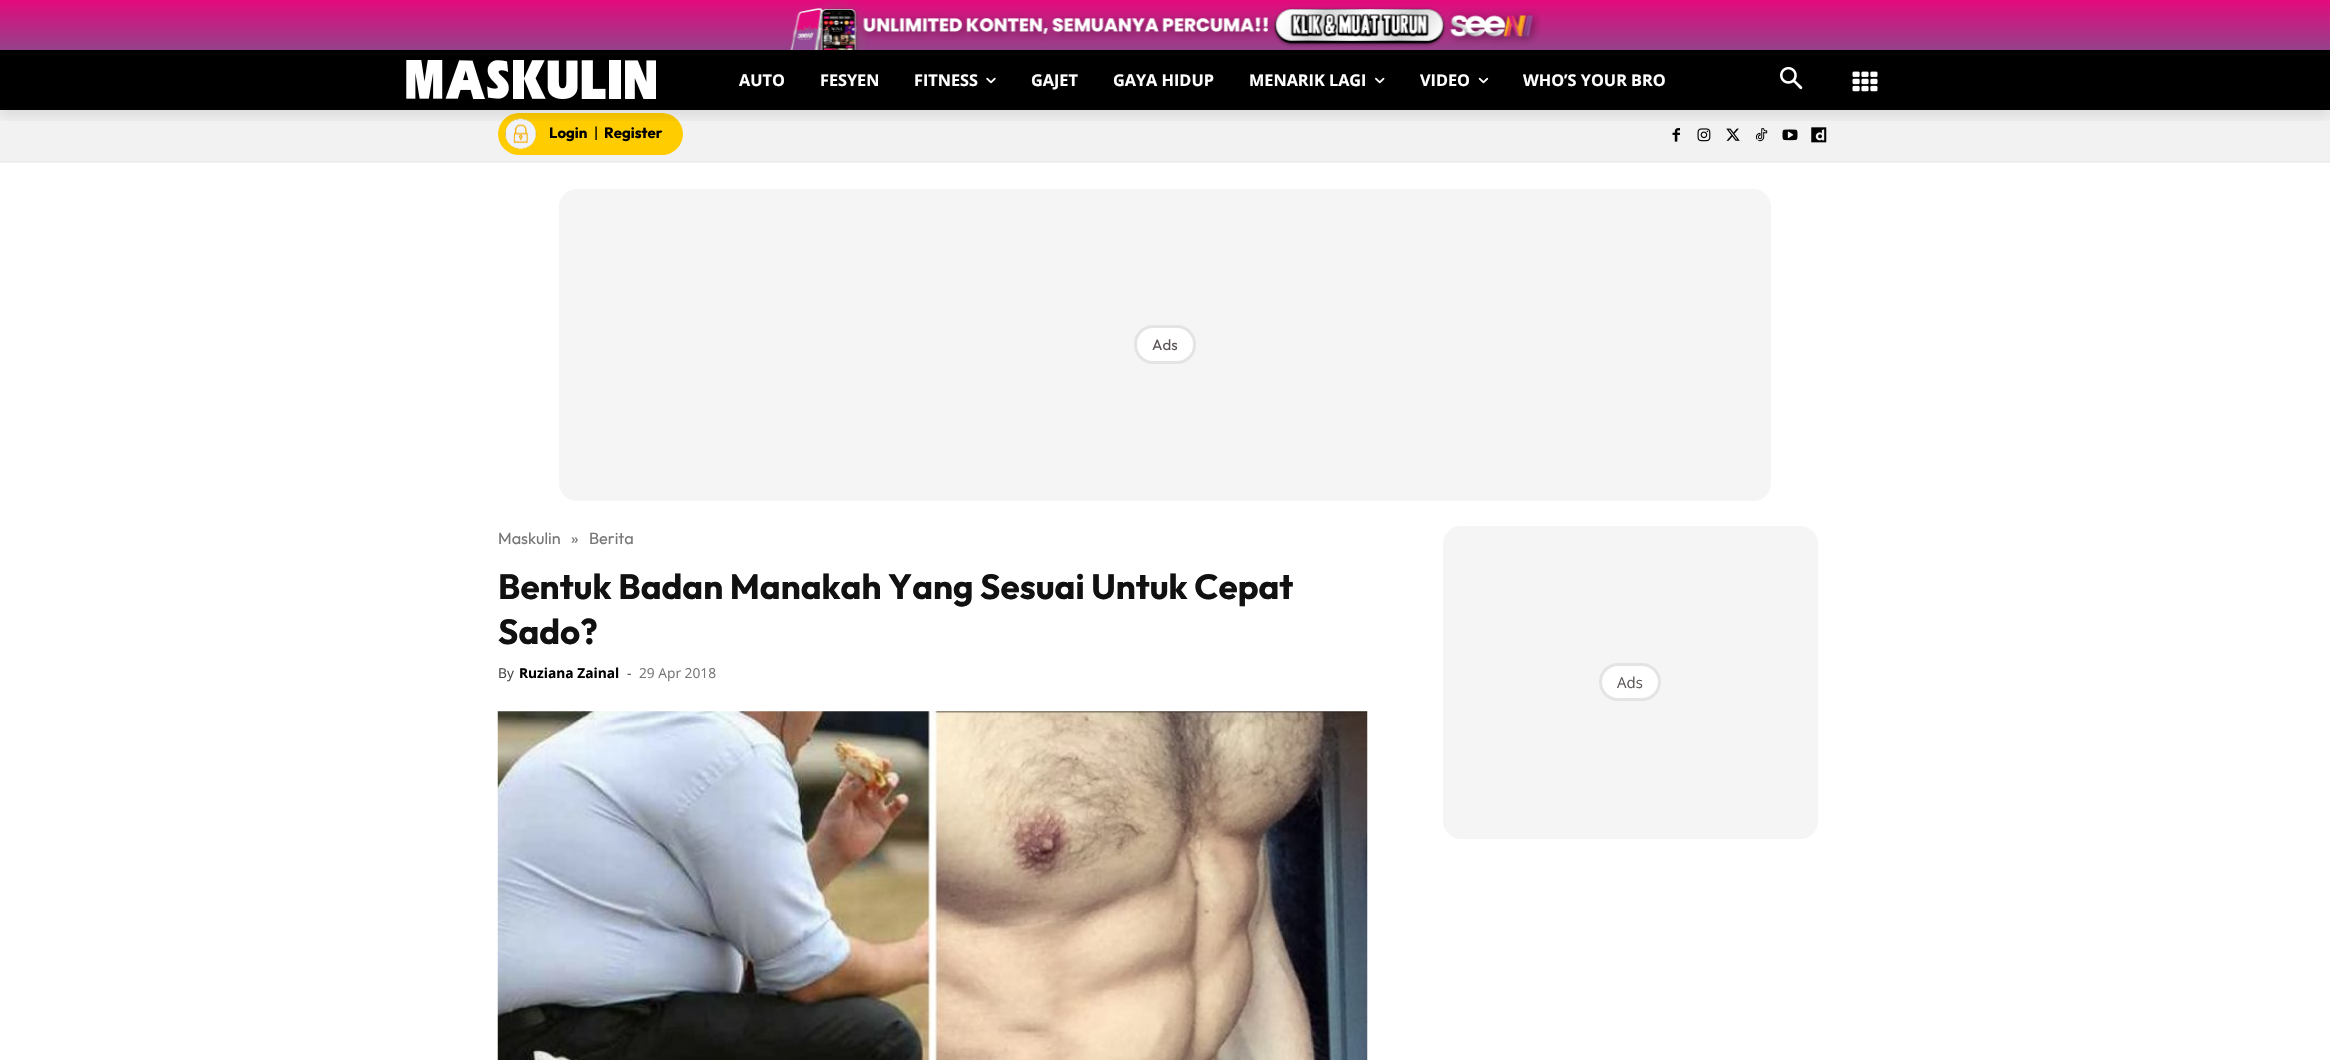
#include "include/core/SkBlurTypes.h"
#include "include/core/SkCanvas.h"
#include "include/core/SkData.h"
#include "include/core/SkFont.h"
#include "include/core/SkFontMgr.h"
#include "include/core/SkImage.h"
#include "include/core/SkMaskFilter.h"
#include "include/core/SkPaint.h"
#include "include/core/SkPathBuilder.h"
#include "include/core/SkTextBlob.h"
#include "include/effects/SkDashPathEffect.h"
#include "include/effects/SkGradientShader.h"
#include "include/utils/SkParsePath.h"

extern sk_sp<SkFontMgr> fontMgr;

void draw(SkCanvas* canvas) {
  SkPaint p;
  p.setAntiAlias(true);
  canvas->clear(SK_ColorWHITE);
  {
    const SkColor colors[] = {SkColorSetRGB(148, 66, 139), SkColorSetRGB(228, 9, 125)};
    const float stops[] = {0, 1};
    const SkPoint ends[] = {{1165, 50}, {1165, 0}};
    p.setShader(SkGradientShader::MakeLinear(ends, colors, stops, 2, SkTileMode::kClamp));
    p.setAlpha(255);
  }
  canvas->drawRect(SkRect::MakeLTRB(0, 0, 2330, 50), p);
  canvas->drawImageRect(SkImages::DeferredFromEncodedData(SkData::MakeFromFileName("images/1.png")), SkRect::MakeLTRB(790, 0, 1541, 50), SkSamplingOptions());
  p.setShader(nullptr);
  p.setColor(SK_ColorBLACK);
  canvas->drawRect(SkRect::MakeLTRB(0, 50, 2330, 110), p);
  canvas->drawImageRect(SkImages::DeferredFromEncodedData(SkData::MakeFromFileName("images/2.png")), SkRect::MakeLTRB(406, 60, 656, 99), SkSamplingOptions());
  canvas->drawImageRect(SkImages::DeferredFromEncodedData(SkData::MakeFromFileName("images/7.png")), SkRect::MakeLTRB(1852, 71, 1878, 92), SkSamplingOptions());
  p.setColor(SkColorSetRGB(242, 242, 242));
  canvas->drawRect(SkRect::MakeLTRB(0, 110, 2330, 163), p);
  p.setColor(SkColorSetRGB(255, 204, 0));
  canvas->drawRoundRect(SkRect::MakeLTRB(498, 113, 683, 155), 21, 21, p);
  canvas->drawImageRect(SkImages::DeferredFromEncodedData(SkData::MakeFromFileName("images/8.png")), SkRect::MakeLTRB(505, 118, 537, 149), SkSamplingOptions());
  canvas->drawImageRect(SkImages::DeferredFromEncodedData(SkData::MakeFromFileName("images/9.png")), SkRect::MakeLTRB(1672, 128, 1680, 142), SkSamplingOptions());
  canvas->drawImageRect(SkImages::DeferredFromEncodedData(SkData::MakeFromFileName("images/10.png")), SkRect::MakeLTRB(1697, 128, 1711, 142), SkSamplingOptions());
  canvas->drawImageRect(SkImages::DeferredFromEncodedData(SkData::MakeFromFileName("images/11.png")), SkRect::MakeLTRB(1726, 128, 1740, 141), SkSamplingOptions());
  canvas->drawImageRect(SkImages::DeferredFromEncodedData(SkData::MakeFromFileName("images/12.png")), SkRect::MakeLTRB(1755, 128, 1768, 142), SkSamplingOptions());
  canvas->drawImageRect(SkImages::DeferredFromEncodedData(SkData::MakeFromFileName("images/13.png")), SkRect::MakeLTRB(1782, 129, 1798, 141), SkSamplingOptions());
  canvas->drawImageRect(SkImages::DeferredFromEncodedData(SkData::MakeFromFileName("images/14.png")), SkRect::MakeLTRB(1811, 127, 1827, 143), SkSamplingOptions());
  canvas->save();
  canvas->clipRect(SkRect::MakeLTRB(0, 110, 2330, 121));
  p.setColor(SkColorSetARGB(20, 0, 0, 0));
  p.setMaskFilter(SkMaskFilter::MakeBlur(kNormal_SkBlurStyle, 5));
  canvas->drawRect(SkRect::MakeLTRB(0, 58, 2330, 118), p);
  p.setMaskFilter(nullptr);
  canvas->restore();
  canvas->drawImageRect(SkImages::DeferredFromEncodedData(SkData::MakeFromFileName("images/3.png")), SkRect::MakeLTRB(986, 77, 996, 84), SkSamplingOptions());
  canvas->drawImageRect(SkImages::DeferredFromEncodedData(SkData::MakeFromFileName("images/4.png")), SkRect::MakeLTRB(1375, 77, 1385, 84), SkSamplingOptions());
  canvas->drawImageRect(SkImages::DeferredFromEncodedData(SkData::MakeFromFileName("images/5.png")), SkRect::MakeLTRB(1478, 77, 1489, 84), SkSamplingOptions());
  canvas->drawImageRect(SkImages::DeferredFromEncodedData(SkData::MakeFromFileName("images/6.png")), SkRect::MakeLTRB(1780, 66, 1803, 90), SkSamplingOptions());
  p.setColor(SkColorSetRGB(235, 235, 235));
  canvas->drawRect(SkRect::MakeLTRB(0, 161, 2330, 162), p);
  p.setColor(SkColorSetRGB(245, 245, 245));
  canvas->drawRoundRect(SkRect::MakeLTRB(559, 189, 1771, 501), 18, 18, p);
  p.setColor(SK_ColorWHITE);
  canvas->drawRoundRect(SkRect::MakeLTRB(1135.5f, 326.5f, 1194.5f, 362.5f), 17.5f, 17.5f, p);
  p.setStyle(SkPaint::kStroke_Style);
  p.setStrokeWidth(3);
  p.setColor(SkColorSetRGB(228, 228, 228));
  canvas->drawRoundRect(SkRect::MakeLTRB(1135.5f, 326.5f, 1194.5f, 362.5f), 17.5f, 17.5f, p);
  canvas->drawImageRect(SkImages::DeferredFromEncodedData(SkData::MakeFromFileName("images/15.png")), SkRect::MakeLTRB(497, 711, 1368, 1060), SkSamplingOptions());
  p.setStyle(SkPaint::kFill_Style);
  p.setColor(SkColorSetRGB(245, 245, 245));
  canvas->drawRoundRect(SkRect::MakeLTRB(1443, 526, 1818, 839), 18, 18, p);
  p.setColor(SK_ColorWHITE);
  canvas->drawRoundRect(SkRect::MakeLTRB(1600.5f, 664.5f, 1659.5f, 699.5f), 17.5f, 17.5f, p);
  p.setStyle(SkPaint::kStroke_Style);
  p.setColor(SkColorSetRGB(228, 228, 228));
  canvas->drawRoundRect(SkRect::MakeLTRB(1600.5f, 664.5f, 1659.5f, 699.5f), 17.5f, 17.5f, p);
  SkFont font1(fontMgr->matchFamilyStyle("Open Sans", SkFontStyle::Bold()), 16.25f);
  font1.setSubpixel(true);
  p.setStyle(SkPaint::kFill_Style);
  p.setColor(SK_ColorWHITE);
  canvas->drawString("AUTO", 739, 86, font1, p);
  canvas->drawString("FESYEN", 820, 86, font1, p);
  canvas->drawString("FITNESS", 914, 86, font1, p);
  canvas->drawString("GAJET", 1031, 86, font1, p);
  canvas->drawString("GAYA HIDUP", 1113, 86, font1, p);
  canvas->drawString("MENARIK LAGI", 1249, 86, font1, p);
  canvas->drawString("VIDEO", 1420, 86, font1, p);
  canvas->drawString("WHO’S YOUR BRO", 1523, 86, font1, p);
  SkFont font2(fontMgr->matchFamilyStyle("Outfit", SkFontStyle::Bold()), 15);
  font2.setSubpixel(true);
  p.setColor(SK_ColorBLACK);
  canvas->drawString("Login", 549, 138, font2, p);
  SkFont font3(fontMgr->matchFamilyStyle("Outfit", SkFontStyle::Normal()), 15);
  font3.setSubpixel(true);
  canvas->drawString("|", 594, 138, font3, p);
  canvas->drawString("Register", 604, 138, font2, p);
  p.setColor(SkColorSetRGB(93, 85, 85));
  canvas->drawString("Ads", 1152, 350, font3, p);
  SkFont font4(fontMgr->matchFamilyStyle("Outfit", SkFontStyle::Normal()), 16.25f);
  font4.setSubpixel(true);
  p.setColor(SkColorSetRGB(118, 118, 118));
  canvas->drawString("Maskulin", 498, 544, font4, p);
  canvas->drawString("»", 571, 544, font4, p);
  canvas->drawString("Berita", 589, 544, font4, p);
  SkFont font5(fontMgr->matchFamilyStyle("Outfit", SkFontStyle::Bold()), 35);
  font5.setSubpixel(true);
  p.setColor(SkColorSetRGB(17, 17, 17));
  canvas->drawString("Bentuk Badan Manakah Yang Sesuai Untuk Cepat", 498, 599, font5, p);
  canvas->drawString("Sado?", 498, 644, font5, p);
  SkFont font6(fontMgr->matchFamilyStyle("Open Sans", SkFontStyle::Normal()), 13.75f);
  font6.setSubpixel(true);
  p.setColor(SkColorSetRGB(68, 68, 68));
  canvas->drawString("By", 498, 678, font6, p);
  SkFont font7(fontMgr->matchFamilyStyle("Open Sans", SkFontStyle::Bold()), 13.75f);
  font7.setSubpixel(true);
  p.setColor(SK_ColorBLACK);
  canvas->drawString("Ruziana Zainal", 519, 678, font7, p);
  p.setColor(SkColorSetRGB(68, 68, 68));
  canvas->drawString("-", 627, 678, font6, p);
  p.setColor(SkColorSetRGB(118, 118, 118));
  canvas->drawString("29 Apr 2018", 639, 678, font6, p);
  SkFont font8(fontMgr->matchFamilyStyle("Open Sans", SkFontStyle::Normal()), 15);
  font8.setSubpixel(true);
  p.setColor(SkColorSetRGB(93, 85, 85));
  canvas->drawString("Ads", 1617, 688, font8, p);
}
